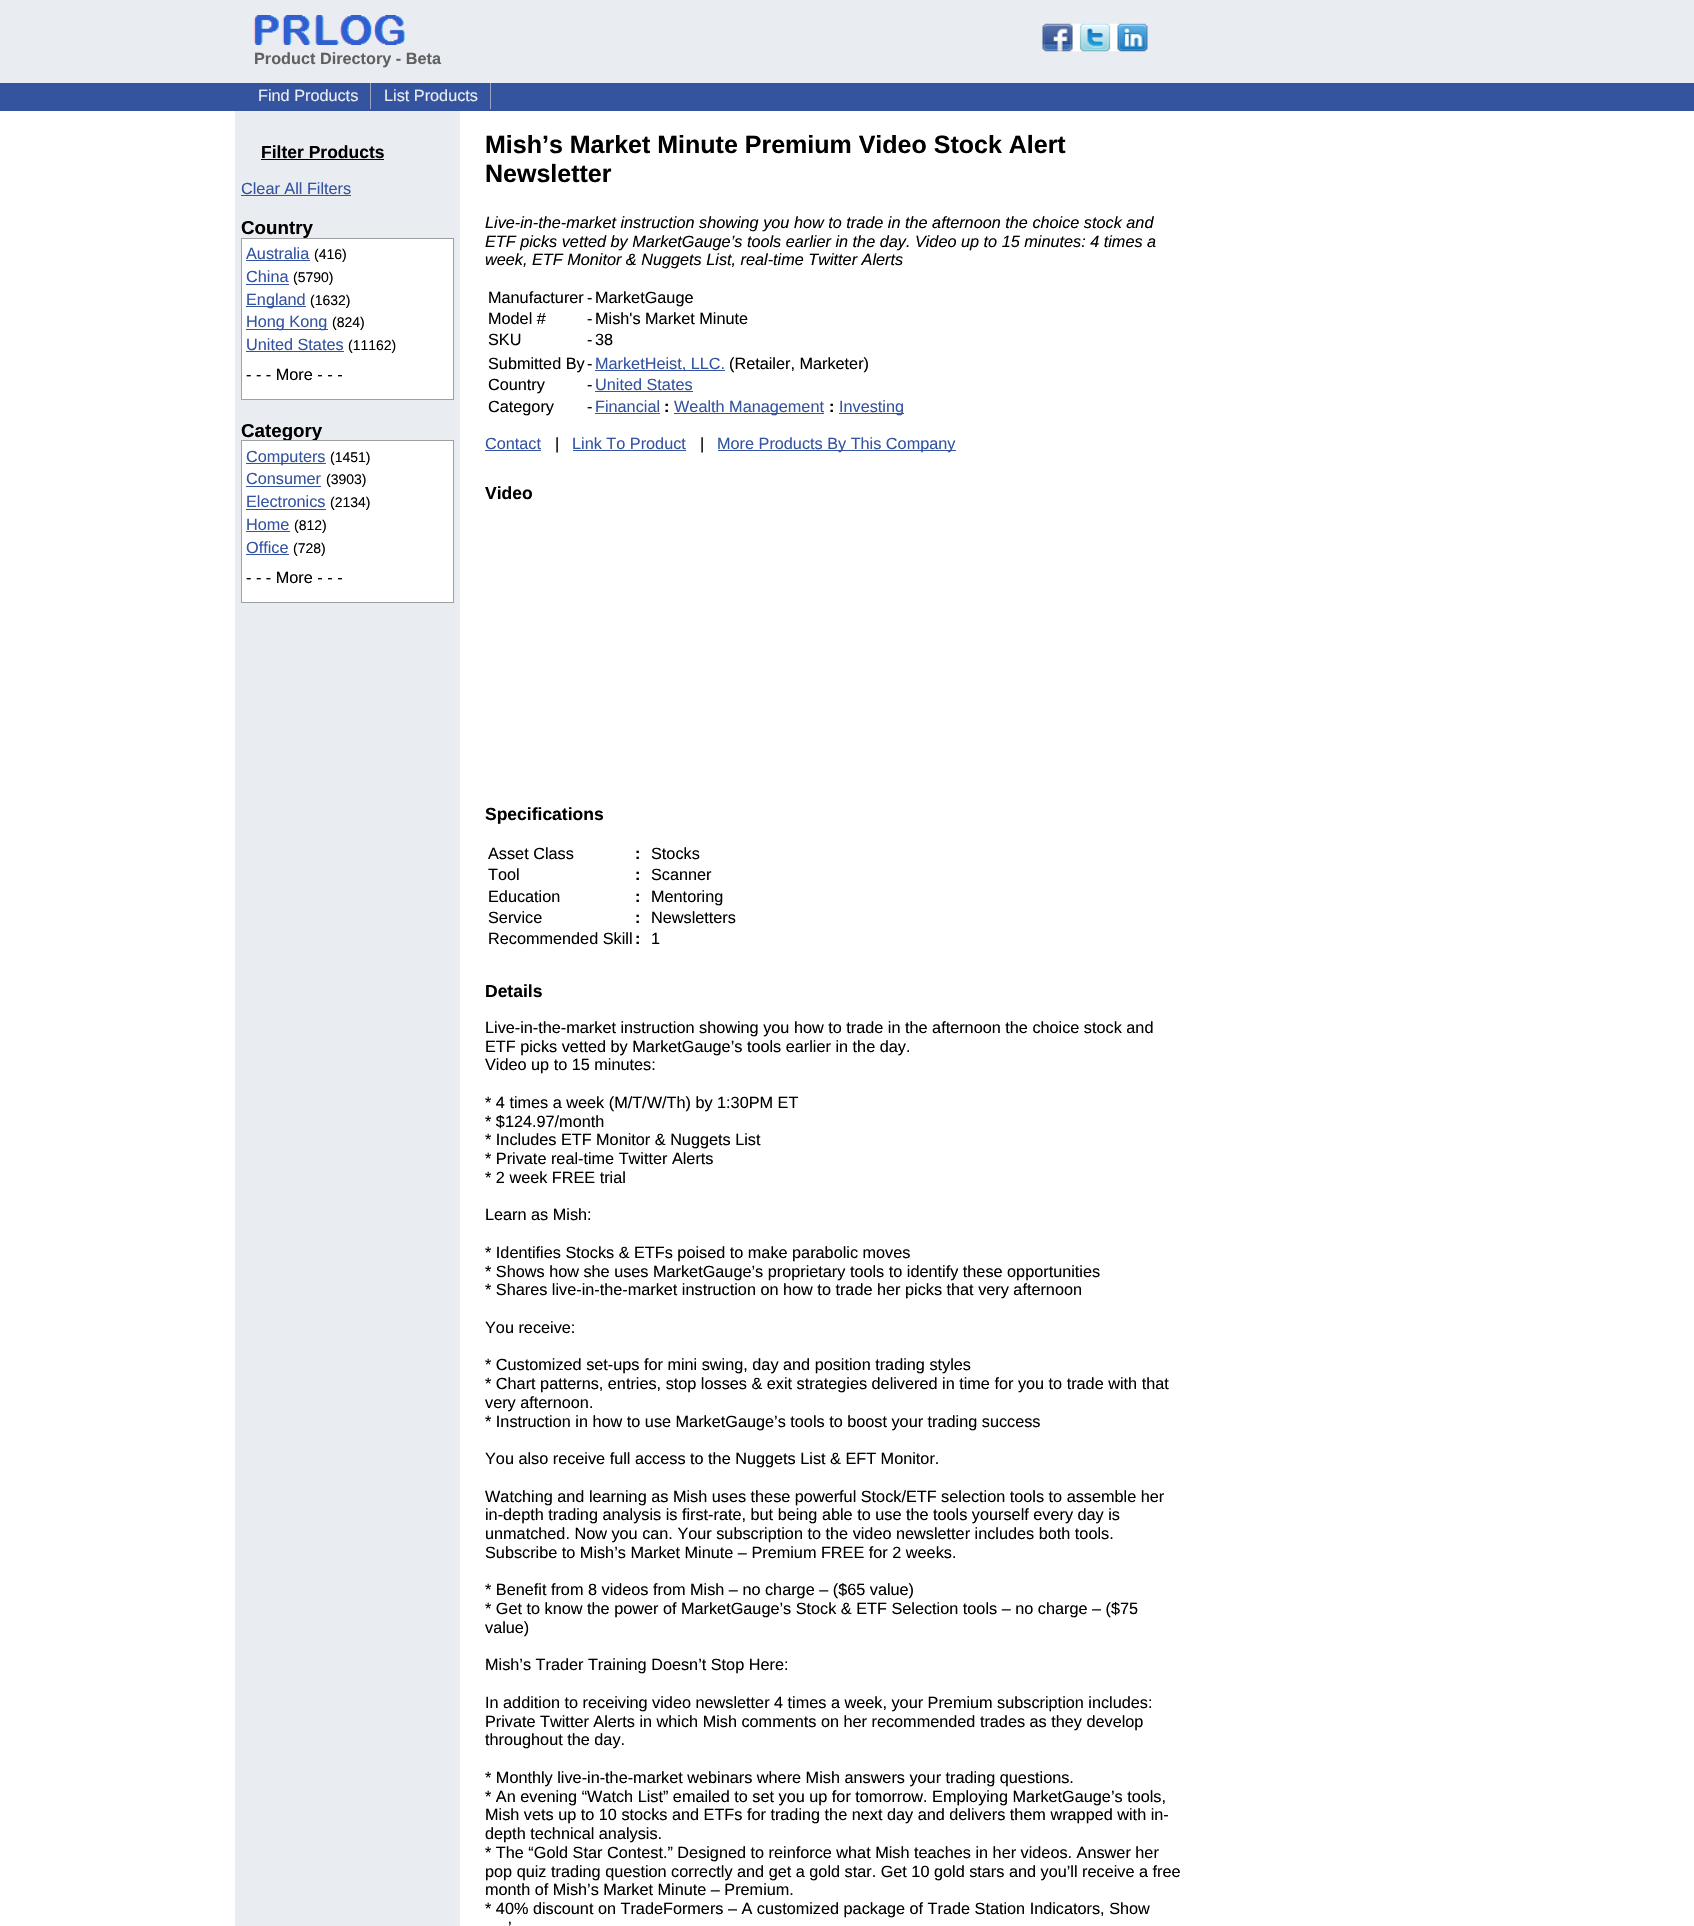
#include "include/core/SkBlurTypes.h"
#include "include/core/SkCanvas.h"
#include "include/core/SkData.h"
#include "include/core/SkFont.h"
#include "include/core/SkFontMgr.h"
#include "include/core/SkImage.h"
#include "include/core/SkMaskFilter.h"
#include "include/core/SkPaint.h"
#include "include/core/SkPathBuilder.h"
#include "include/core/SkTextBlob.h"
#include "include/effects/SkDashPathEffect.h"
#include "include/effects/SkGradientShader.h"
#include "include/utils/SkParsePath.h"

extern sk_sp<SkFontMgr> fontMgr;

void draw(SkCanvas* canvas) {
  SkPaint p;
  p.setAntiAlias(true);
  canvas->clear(SK_ColorWHITE);
  p.setColor(SkColorSetRGB(233, 237, 242));
  canvas->drawRect(SkRect::MakeLTRB(0, 0, 1694, 83), p);
  canvas->drawImageRect(SkImages::DeferredFromEncodedData(SkData::MakeFromFileName("images/1.png")), SkRect::MakeLTRB(1042, 23, 1148, 52), SkSamplingOptions());
  canvas->drawImageRect(SkImages::DeferredFromEncodedData(SkData::MakeFromFileName("images/2.png")), SkRect::MakeLTRB(253, 15, 405, 45), SkSamplingOptions());
  p.setColor(SkColorSetRGB(52, 84, 160));
  canvas->drawRect(SkRect::MakeLTRB(0, 83, 1694, 111), p);
  p.setColor(SkColorSetRGB(160, 160, 192));
  canvas->drawRect(SkRect::MakeLTRB(370, 83, 371, 109), p);
  canvas->drawRect(SkRect::MakeLTRB(490, 83, 491, 109), p);
  p.setColor(SkColorSetRGB(233, 237, 242));
  canvas->drawRect(SkRect::MakeLTRB(235, 111, 460, 1926), p);
  p.setColor(SK_ColorBLACK);
  canvas->drawRect(SkRect::MakeLTRB(261, 159, 384, 160), p);
  p.setColor(SkColorSetRGB(52, 84, 160));
  canvas->drawRect(SkRect::MakeLTRB(241, 195, 351, 196), p);
  p.setColor(SK_ColorWHITE);
  canvas->drawRect(SkRect::MakeLTRB(241.5f, 238.5f, 453.5f, 399.5f), p);
  p.setStyle(SkPaint::kStroke_Style);
  p.setStrokeWidth(1);
  p.setColor(SkColorSetRGB(160, 160, 160));
  canvas->drawRect(SkRect::MakeLTRB(241.5f, 238.5f, 453.5f, 399.5f), p);
  p.setStyle(SkPaint::kFill_Style);
  p.setColor(SkColorSetRGB(52, 84, 160));
  canvas->drawRect(SkRect::MakeLTRB(246, 260, 310, 261), p);
  canvas->drawRect(SkRect::MakeLTRB(246, 284, 289, 285), p);
  canvas->drawRect(SkRect::MakeLTRB(246, 306, 306, 307), p);
  canvas->drawRect(SkRect::MakeLTRB(246, 329, 328, 330), p);
  canvas->drawRect(SkRect::MakeLTRB(246, 351, 344, 352), p);
  canvas->drawRect(SkRect::MakeLTRB(595, 370, 725, 371), p);
  canvas->drawRect(SkRect::MakeLTRB(595, 391, 693, 392), p);
  canvas->drawRect(SkRect::MakeLTRB(595, 413, 660, 414), p);
  canvas->drawRect(SkRect::MakeLTRB(674, 413, 824, 414), p);
  canvas->drawRect(SkRect::MakeLTRB(839, 413, 904, 414), p);
  canvas->drawRect(SkRect::MakeLTRB(485, 450, 541, 451), p);
  canvas->drawRect(SkRect::MakeLTRB(573, 450, 686, 451), p);
  canvas->drawRect(SkRect::MakeLTRB(718, 450, 956, 451), p);
  SkFont font1(fontMgr->matchFamilyStyle("Liberation Sans", SkFontStyle::Bold()), 16.25f);
  font1.setSubpixel(true);
  p.setColor(SkColorSetRGB(96, 96, 96));
  canvas->drawString("Product Directory - Beta", 254, 64, font1, p);
  SkFont font2(fontMgr->matchFamilyStyle("Liberation Sans", SkFontStyle::Normal()), 16.25f);
  font2.setSubpixel(true);
  p.setColor(SkColorSetRGB(233, 237, 242));
  canvas->drawString("Find Products", 258, 101, font2, p);
  canvas->drawString("List Products", 384, 101, font2, p);
  SkFont font3(fontMgr->matchFamilyStyle("Liberation Sans", SkFontStyle::Bold()), 17.5f);
  font3.setSubpixel(true);
  p.setColor(SK_ColorBLACK);
  canvas->drawString("Filter Products", 261, 158, font3, p);
  p.setColor(SkColorSetRGB(52, 84, 160));
  canvas->drawString("Clear All Filters", 241, 194, font2, p);
  SkFont font4(fontMgr->matchFamilyStyle("Liberation Sans", SkFontStyle::Bold()), 18.75f);
  font4.setSubpixel(true);
  p.setColor(SK_ColorBLACK);
  canvas->drawString("Country", 241, 234, font4, p);
  p.setColor(SkColorSetRGB(52, 84, 160));
  canvas->drawString("Australia", 246, 259, font2, p);
  SkFont font5(fontMgr->matchFamilyStyle("Liberation Sans", SkFontStyle::Normal()), 14);
  font5.setSubpixel(true);
  p.setColor(SK_ColorBLACK);
  canvas->drawString("(416)", 314, 259, font5, p);
  p.setColor(SkColorSetRGB(52, 84, 160));
  canvas->drawString("China", 246, 282, font2, p);
  p.setColor(SK_ColorBLACK);
  canvas->drawString("(5790)", 293, 282, font5, p);
  p.setColor(SkColorSetRGB(52, 84, 160));
  canvas->drawString("England", 246, 305, font2, p);
  p.setColor(SK_ColorBLACK);
  canvas->drawString("(1632)", 310, 305, font5, p);
  p.setColor(SkColorSetRGB(52, 84, 160));
  canvas->drawString("Hong Kong", 246, 327, font2, p);
  p.setColor(SK_ColorBLACK);
  canvas->drawString("(824)", 332, 327, font5, p);
  p.setColor(SkColorSetRGB(52, 84, 160));
  canvas->drawString("United States", 246, 350, font2, p);
  p.setColor(SK_ColorBLACK);
  canvas->drawString("(11162)", 348, 350, font5, p);
  canvas->drawString("- - - More - - -", 246, 380, font2, p);
  canvas->drawString("Category", 241, 437, font4, p);
  p.setColor(SK_ColorWHITE);
  canvas->drawRect(SkRect::MakeLTRB(241.5f, 440.5f, 453.5f, 602.5f), p);
  p.setStyle(SkPaint::kStroke_Style);
  p.setColor(SkColorSetRGB(160, 160, 160));
  canvas->drawRect(SkRect::MakeLTRB(241.5f, 440.5f, 453.5f, 602.5f), p);
  p.setStyle(SkPaint::kFill_Style);
  p.setColor(SkColorSetRGB(52, 84, 160));
  canvas->drawRect(SkRect::MakeLTRB(246, 463, 326, 464), p);
  canvas->drawString("Computers", 246, 462, font2, p);
  p.setColor(SK_ColorBLACK);
  canvas->drawString("(1451)", 330, 462, font5, p);
  p.setColor(SkColorSetRGB(52, 84, 160));
  canvas->drawString("Consumer", 246, 484, font2, p);
  canvas->drawRect(SkRect::MakeLTRB(246, 486, 321, 487), p);
  p.setColor(SK_ColorBLACK);
  canvas->drawString("(3903)", 326, 484, font5, p);
  p.setColor(SkColorSetRGB(52, 84, 160));
  canvas->drawString("Electronics", 246, 507, font2, p);
  canvas->drawRect(SkRect::MakeLTRB(246, 509, 326, 510), p);
  p.setColor(SK_ColorBLACK);
  canvas->drawString("(2134)", 330, 507, font5, p);
  p.setColor(SkColorSetRGB(52, 84, 160));
  canvas->drawString("Home", 246, 530, font2, p);
  canvas->drawRect(SkRect::MakeLTRB(246, 531, 290, 532), p);
  p.setColor(SK_ColorBLACK);
  canvas->drawString("(812)", 294, 530, font5, p);
  p.setColor(SkColorSetRGB(52, 84, 160));
  canvas->drawString("Office", 246, 553, font2, p);
  canvas->drawRect(SkRect::MakeLTRB(246, 554, 289, 555), p);
  p.setColor(SK_ColorBLACK);
  canvas->drawString("(728)", 293, 553, font5, p);
  canvas->drawString("- - - More - - -", 246, 583, font2, p);
  SkFont font6(fontMgr->matchFamilyStyle("Liberation Sans", SkFontStyle::Bold()), 25);
  font6.setSubpixel(true);
  canvas->drawString("Mish’s Market Minute Premium Video Stock Alert", 485, 153, font6, p);
  canvas->drawString("Newsletter", 485, 182, font6, p);
  SkFont font7(fontMgr->matchFamilyStyle("Liberation Sans", SkFontStyle::Italic()), 16.25f);
  font7.setSubpixel(true);
  canvas->drawString("Live-in-the-market instruction showing you how to trade in the afternoon the choice stock and", 485, 228, font7, p);
  canvas->drawString("ETF picks vetted by MarketGauge’s tools earlier in the day. Video up to 15 minutes: 4 times a", 485, 247, font7, p);
  canvas->drawString("week, ETF Monitor & Nuggets List, real-time Twitter Alerts", 485, 265, font7, p);
  canvas->drawString("Manufacturer", 488, 303, font2, p);
  canvas->drawString("-", 587, 303, font2, p);
  canvas->drawString("MarketGauge", 595, 303, font2, p);
  canvas->drawString("Model #", 488, 324, font2, p);
  canvas->drawString("-", 587, 324, font2, p);
  canvas->drawString("Mish's Market Minute", 595, 324, font2, p);
  canvas->drawString("SKU", 488, 345, font2, p);
  canvas->drawString("-", 587, 345, font2, p);
  canvas->drawString("38", 595, 345, font2, p);
  canvas->drawString("Submitted By", 488, 369, font2, p);
  canvas->drawString("-", 587, 369, font2, p);
  p.setColor(SkColorSetRGB(52, 84, 160));
  canvas->drawString("MarketHeist, LLC.", 595, 369, font2, p);
  p.setColor(SK_ColorBLACK);
  canvas->drawString("(Retailer, Marketer)", 729, 369, font2, p);
  canvas->drawString("Country", 488, 390, font2, p);
  canvas->drawString("-", 587, 390, font2, p);
  p.setColor(SkColorSetRGB(52, 84, 160));
  canvas->drawString("United States", 595, 390, font2, p);
  p.setColor(SK_ColorBLACK);
  canvas->drawString("Category", 488, 412, font2, p);
  canvas->drawString("-", 587, 412, font2, p);
  p.setColor(SkColorSetRGB(52, 84, 160));
  canvas->drawString("Financial", 595, 412, font2, p);
  p.setColor(SK_ColorBLACK);
  canvas->drawString(":", 664, 412, font1, p);
  p.setColor(SkColorSetRGB(52, 84, 160));
  canvas->drawString("Wealth Management", 674, 412, font2, p);
  p.setColor(SK_ColorBLACK);
  canvas->drawString(":", 829, 412, font1, p);
  p.setColor(SkColorSetRGB(52, 84, 160));
  canvas->drawString("Investing", 839, 412, font2, p);
  canvas->drawString("Contact", 485, 449, font2, p);
  p.setColor(SK_ColorBLACK);
  canvas->drawString("|", 555, 449, font2, p);
  p.setColor(SkColorSetRGB(52, 84, 160));
  canvas->drawString("Link To Product", 572, 449, font2, p);
  p.setColor(SK_ColorBLACK);
  canvas->drawString("|", 700, 449, font2, p);
  p.setColor(SkColorSetRGB(52, 84, 160));
  canvas->drawString("More Products By This Company", 717, 449, font2, p);
  p.setColor(SK_ColorBLACK);
  canvas->drawString("Video", 485, 499, font3, p);
  canvas->drawString("Specifications", 485, 820, font3, p);
  canvas->drawString("Asset Class", 488, 859, font2, p);
  canvas->drawString(":", 635, 859, font1, p);
  canvas->drawString("Stocks", 651, 859, font2, p);
  canvas->drawString("Tool", 488, 880, font2, p);
  canvas->drawString(":", 635, 880, font1, p);
  canvas->drawString("Scanner", 651, 880, font2, p);
  canvas->drawString("Education", 488, 902, font2, p);
  canvas->drawString(":", 635, 902, font1, p);
  canvas->drawString("Mentoring", 651, 902, font2, p);
  canvas->drawString("Service", 488, 923, font2, p);
  canvas->drawString(":", 635, 923, font1, p);
  canvas->drawString("Newsletters", 651, 923, font2, p);
  canvas->drawString("Recommended Skill", 488, 944, font2, p);
  canvas->drawString(":", 635, 944, font1, p);
  canvas->drawString("1", 651, 944, font2, p);
  canvas->drawString("Details", 485, 997, font3, p);
  canvas->drawString("Live-in-the-market instruction showing you how to trade in the afternoon the choice stock and", 485, 1033, font2, p);
  canvas->drawString("ETF picks vetted by MarketGauge’s tools earlier in the day.", 485, 1052, font2, p);
  canvas->drawString("Video up to 15 minutes:", 485, 1070, font2, p);
  canvas->drawString("* 4 times a week (M/T/W/Th) by 1:30PM ET", 485, 1108, font2, p);
  canvas->drawString("* $124.97/month", 485, 1127, font2, p);
  canvas->drawString("* Includes ETF Monitor & Nuggets List", 485, 1145, font2, p);
  canvas->drawString("* Private real-time Twitter Alerts", 485, 1164, font2, p);
  canvas->drawString("* 2 week FREE trial", 485, 1183, font2, p);
  canvas->drawString("Learn as Mish:", 485, 1220, font2, p);
  canvas->drawString("* Identifies Stocks & ETFs poised to make parabolic moves", 485, 1258, font2, p);
  canvas->drawString("* Shows how she uses MarketGauge’s proprietary tools to identify these opportunities", 485, 1277, font2, p);
  canvas->drawString("* Shares live-in-the-market instruction on how to trade her picks that very afternoon", 485, 1295, font2, p);
  canvas->drawString("You receive:", 485, 1333, font2, p);
  canvas->drawString("* Customized set-ups for mini swing, day and position trading styles", 485, 1370, font2, p);
  canvas->drawString("* Chart patterns, entries, stop losses & exit strategies delivered in time for you to trade with that", 485, 1389, font2, p);
  canvas->drawString("very afternoon.", 485, 1408, font2, p);
  canvas->drawString("* Instruction in how to use MarketGauge’s tools to boost your trading success", 485, 1427, font2, p);
  canvas->drawString("You also receive full access to the Nuggets List & EFT Monitor.", 485, 1464, font2, p);
  canvas->drawString("Watching and learning as Mish uses these powerful Stock/ETF selection tools to assemble her", 485, 1502, font2, p);
  canvas->drawString("in-depth trading analysis is first-rate, but being able to use the tools yourself every day is", 485, 1520, font2, p);
  canvas->drawString("unmatched. Now you can. Your subscription to the video newsletter includes both tools.", 485, 1539, font2, p);
  canvas->drawString("Subscribe to Mish’s Market Minute – Premium FREE for 2 weeks.", 485, 1558, font2, p);
  canvas->drawString("* Benefit from 8 videos from Mish – no charge – ($65 value)", 485, 1595, font2, p);
  canvas->drawString("* Get to know the power of MarketGauge’s Stock & ETF Selection tools – no charge – ($75", 485, 1614, font2, p);
  canvas->drawString("value)", 485, 1633, font2, p);
  canvas->drawString("Mish’s Trader Training Doesn’t Stop Here:", 485, 1670, font2, p);
  canvas->drawString("In addition to receiving video newsletter 4 times a week, your Premium subscription includes:", 485, 1708, font2, p);
  canvas->drawString("Private Twitter Alerts in which Mish comments on her recommended trades as they develop", 485, 1727, font2, p);
  canvas->drawString("throughout the day.", 485, 1745, font2, p);
  canvas->drawString("* Monthly live-in-the-market webinars where Mish answers your trading questions.", 485, 1783, font2, p);
  canvas->drawString("* An evening “Watch List” emailed to set you up for tomorrow. Employing MarketGauge’s tools,", 485, 1802, font2, p);
  canvas->drawString("Mish vets up to 10 stocks and ETFs for trading the next day and delivers them wrapped with in-", 485, 1820, font2, p);
  canvas->drawString("depth technical analysis.", 485, 1839, font2, p);
  canvas->drawString("* The “Gold Star Contest.” Designed to reinforce what Mish teaches in her videos. Answer her", 485, 1858, font2, p);
  canvas->drawString("pop quiz trading question correctly and get a gold star. Get 10 gold stars and you’ll receive a free", 485, 1877, font2, p);
  canvas->drawString("month of Mish’s Market Minute – Premium.", 485, 1895, font2, p);
  canvas->drawString("* 40% discount on TradeFormers – A customized package of Trade Station Indicators, Show", 485, 1914, font2, p);
  canvas->drawString("’", 508, 1933, font2, p);
}
